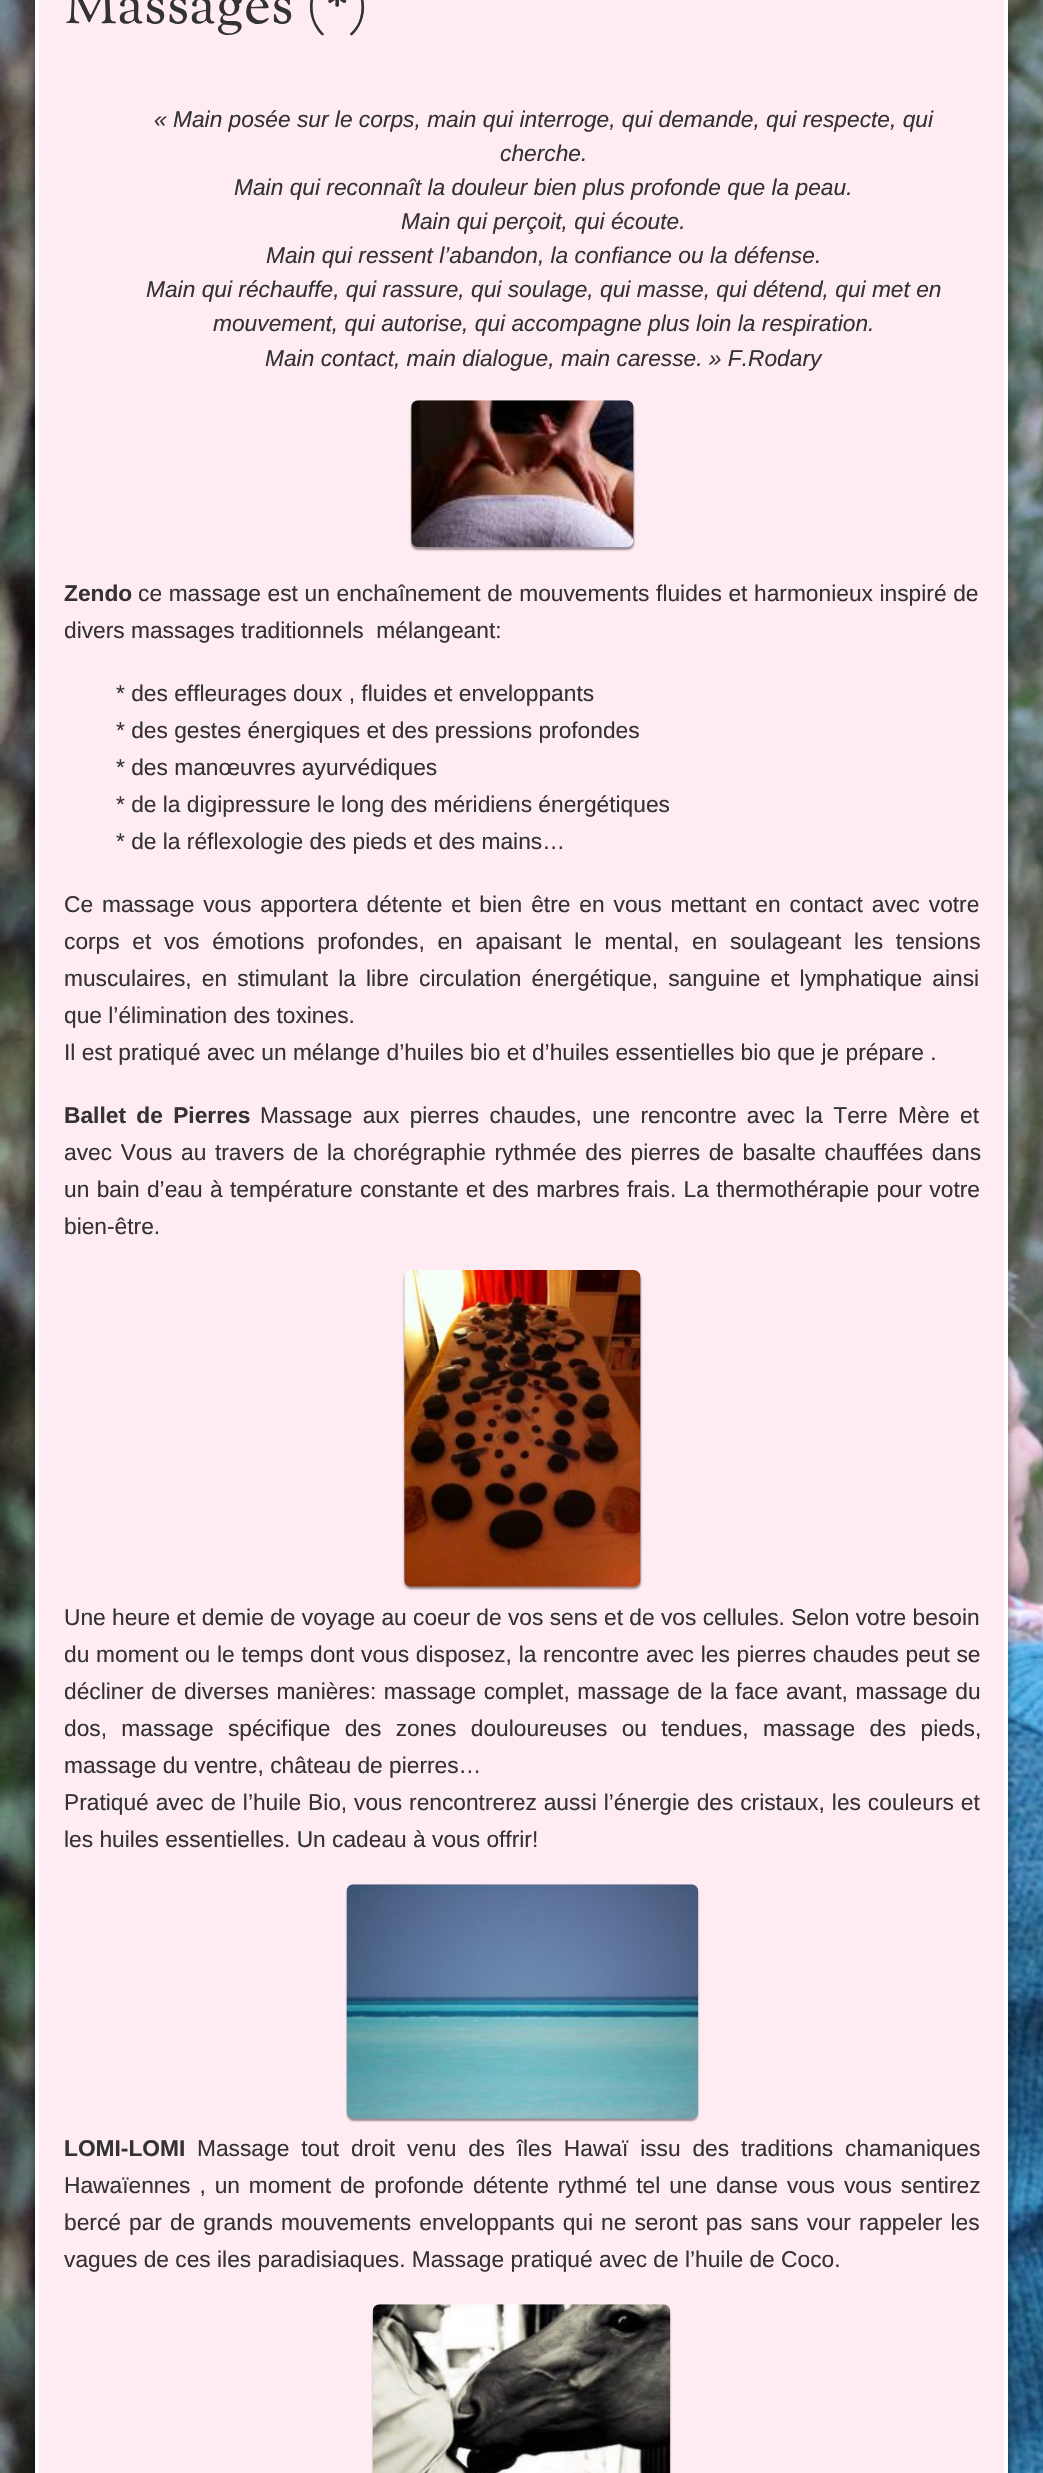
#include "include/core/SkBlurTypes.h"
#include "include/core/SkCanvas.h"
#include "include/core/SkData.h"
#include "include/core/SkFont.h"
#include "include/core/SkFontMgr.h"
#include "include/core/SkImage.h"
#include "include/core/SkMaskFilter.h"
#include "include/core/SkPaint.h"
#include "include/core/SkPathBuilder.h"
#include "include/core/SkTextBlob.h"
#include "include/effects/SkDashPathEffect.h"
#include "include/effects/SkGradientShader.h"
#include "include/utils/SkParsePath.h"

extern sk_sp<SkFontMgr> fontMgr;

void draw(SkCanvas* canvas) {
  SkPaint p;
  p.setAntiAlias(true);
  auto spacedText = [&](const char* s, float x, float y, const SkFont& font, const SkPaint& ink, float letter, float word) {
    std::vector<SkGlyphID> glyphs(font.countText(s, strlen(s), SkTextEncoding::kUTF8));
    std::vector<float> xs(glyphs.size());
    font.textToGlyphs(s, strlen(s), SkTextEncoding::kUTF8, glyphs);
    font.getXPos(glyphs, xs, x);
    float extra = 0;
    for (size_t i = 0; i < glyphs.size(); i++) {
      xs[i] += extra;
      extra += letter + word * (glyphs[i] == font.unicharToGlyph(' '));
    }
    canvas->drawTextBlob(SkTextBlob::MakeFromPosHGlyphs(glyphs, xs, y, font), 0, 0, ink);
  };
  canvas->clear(SK_ColorWHITE);
  canvas->drawImageRect(SkImages::DeferredFromEncodedData(SkData::MakeFromFileName("images/1.png")), SkRect::MakeLTRB(0, 0, 1043, 2473), SkSamplingOptions());
  p.setColor(SkColorSetARGB(128, 0, 0, 0));
  p.setMaskFilter(SkMaskFilter::MakeBlur(kNormal_SkBlurStyle, 4.5f));
  canvas->drawRect(SkRect::MakeLTRB(35, -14, 991, 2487), p);
  p.setMaskFilter(nullptr);
  p.setMaskFilter(SkMaskFilter::MakeBlur(kNormal_SkBlurStyle, 4.5f));
  canvas->drawRect(SkRect::MakeLTRB(53, -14, 1008, 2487), p);
  p.setMaskFilter(nullptr);
  p.setColor(SkColorSetRGB(255, 235, 242));
  canvas->drawRect(SkRect::MakeLTRB(37, -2, 1006, 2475), p);
  p.setStyle(SkPaint::kStroke_Style);
  p.setStrokeWidth(4);
  p.setColor(SK_ColorWHITE);
  canvas->drawRect(SkRect::MakeLTRB(37, -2, 1006, 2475), p);
  p.setStyle(SkPaint::kFill_Style);
  p.setColor(SkColorSetARGB(102, 0, 0, 0));
  p.setMaskFilter(SkMaskFilter::MakeBlur(kNormal_SkBlurStyle, 1));
  canvas->drawRoundRect(SkRect::MakeLTRB(411, 403, 634, 550), 7, 7, p);
  p.setMaskFilter(nullptr);
  canvas->drawImageRect(SkImages::DeferredFromEncodedData(SkData::MakeFromFileName("images/2.png")), SkRect::MakeLTRB(411, 400, 634, 548), SkSamplingOptions());
  p.setMaskFilter(SkMaskFilter::MakeBlur(kNormal_SkBlurStyle, 1));
  canvas->drawRoundRect(SkRect::MakeLTRB(404, 1272, 641, 1589), 7, 7, p);
  p.setMaskFilter(nullptr);
  canvas->drawImageRect(SkImages::DeferredFromEncodedData(SkData::MakeFromFileName("images/3.png")), SkRect::MakeLTRB(404, 1270, 641, 1587), SkSamplingOptions());
  p.setMaskFilter(SkMaskFilter::MakeBlur(kNormal_SkBlurStyle, 1));
  canvas->drawRoundRect(SkRect::MakeLTRB(347, 1887, 698, 2121), 7, 7, p);
  p.setMaskFilter(nullptr);
  canvas->drawImageRect(SkImages::DeferredFromEncodedData(SkData::MakeFromFileName("images/4.png")), SkRect::MakeLTRB(346, 1884, 699, 2119), SkSamplingOptions());
  p.setMaskFilter(SkMaskFilter::MakeBlur(kNormal_SkBlurStyle, 1));
  canvas->drawRoundRect(SkRect::MakeLTRB(373, 2307, 670, 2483), 7, 7, p);
  p.setMaskFilter(nullptr);
  canvas->drawImageRect(SkImages::DeferredFromEncodedData(SkData::MakeFromFileName("images/5.png")), SkRect::MakeLTRB(372, 2304, 671, 2473), SkSamplingOptions());
  SkFont font1(fontMgr->matchFamilyStyle("Sorts Mill Goudy", SkFontStyle::Normal()), 57.75f);
  font1.setSubpixel(true);
  p.setColor(SkColorSetRGB(51, 51, 51));
  canvas->drawString("Massages (*)", 64, 23, font1, p);
  SkFont font2(fontMgr->matchFamilyStyle("Liberation Sans", SkFontStyle::Italic()), 22.75f);
  font2.setSubpixel(true);
  canvas->drawString("« Main posée sur le corps, main qui interroge, qui demande, qui respecte, qui", 154, 127, font2, p);
  canvas->drawString("cherche.", 500, 161, font2, p);
  canvas->drawString("Main qui reconnaît la douleur bien plus profonde que la peau.", 234, 195, font2, p);
  canvas->drawString("Main qui perçoit, qui écoute.", 401, 229, font2, p);
  canvas->drawString("Main qui ressent l’abandon, la confiance ou la défense.", 266, 263, font2, p);
  canvas->drawString("Main qui réchauffe, qui rassure, qui soulage, qui masse, qui détend, qui met en", 146, 297, font2, p);
  canvas->drawString("mouvement, qui autorise, qui accompagne plus loin la respiration.", 213, 331, font2, p);
  canvas->drawString("Main contact, main dialogue, main caresse. » F.Rodary", 265, 366, font2, p);
  SkFont font3(fontMgr->matchFamilyStyle("Liberation Sans", SkFontStyle::Bold()), 22.75f);
  font3.setSubpixel(true);
  canvas->drawString("Zendo", 64, 601, font3, p);
  SkFont font4(fontMgr->matchFamilyStyle("Liberation Sans", SkFontStyle::Normal()), 22.75f);
  font4.setSubpixel(true);
  spacedText("ce massage est un enchaînement de mouvements fluides et harmonieux inspiré de", 138, 601, font4, p, 0, 0.3f);
  canvas->drawString("divers massages traditionnels  mélangeant:", 64, 638, font4, p);
  canvas->drawString("* des effleurages doux , fluides et enveloppants", 116, 701, font4, p);
  canvas->drawString("* des gestes énergiques et des pressions profondes", 116, 738, font4, p);
  canvas->drawString("* des manœuvres ayurvédiques", 116, 775, font4, p);
  canvas->drawString("* de la digipressure le long des méridiens énergétiques", 116, 812, font4, p);
  canvas->drawString("* de la réflexologie des pieds et des mains…", 116, 849, font4, p);
  spacedText("Ce massage vous apportera détente et bien être en vous mettant en contact avec votre", 64, 912, font4, p, 0, 2.6f);
  spacedText("corps et vos émotions profondes, en apaisant le mental, en soulageant les tensions", 64, 949, font4, p, 0, 6.4f);
  spacedText("musculaires, en stimulant la libre circulation énergétique, sanguine et lymphatique ainsi", 64, 986, font4, p, 0, 3.75f);
  canvas->drawString("que l’élimination des toxines.", 64, 1023, font4, p);
  canvas->drawString("Il est pratiqué avec un mélange d’huiles bio et d’huiles essentielles bio que je prépare .", 64, 1060, font4, p);
  spacedText("Ballet de Pierres", 64, 1123, font3, p, 0, 4);
  spacedText("Massage aux pierres chaudes, une rencontre avec la Terre Mère et", 260, 1123, font4, p, 0, 4);
  spacedText("avec Vous au travers de la chorégraphie rythmée des pierres de basalte chauffées dans", 64, 1160, font4, p, 0, 2.25f);
  spacedText("un bain d’eau à température constante et des marbres frais. La thermothérapie pour votre", 64, 1197, font4, p, 0, 1);
  canvas->drawString("bien-être.", 64, 1234, font4, p);
  canvas->drawString("Une heure et demie de voyage au coeur de vos sens et de vos cellules. Selon votre besoin", 64, 1625, font4, p);
  spacedText("du moment ou le temps dont vous disposez, la rencontre avec les pierres chaudes peut se", 64, 1662, font4, p, 0, 0.4f);
  spacedText("décliner de diverses manières: massage complet, massage de la face avant, massage du", 64, 1699, font4, p, 0, 1.25f);
  spacedText("dos, massage spécifique des zones douloureuses ou tendues, massage des pieds,", 64, 1736, font4, p, 0, 8);
  canvas->drawString("massage du ventre, château de pierres…", 64, 1773, font4, p);
  spacedText("Pratiqué avec de l’huile Bio, vous rencontrerez aussi l’énergie des cristaux, les couleurs et", 64, 1810, font4, p, 0, 0.6f);
  canvas->drawString("les huiles essentielles. Un cadeau à vous offrir!", 64, 1847, font4, p);
  canvas->drawString("LOMI-LOMI", 64, 2156, font3, p);
  spacedText("Massage tout droit venu des îles Hawaï issu des traditions chamaniques", 197, 2156, font4, p, 0, 5.5f);
  spacedText("Hawaïennes , un moment de profonde détente rythmé tel une danse vous vous sentirez", 64, 2193, font4, p, 0, 2.6f);
  spacedText("bercé par de grands mouvements enveloppants qui ne seront pas sans vour rappeler les", 64, 2230, font4, p, 0, 1.75f);
  canvas->drawString("vagues de ces iles paradisiaques. Massage pratiqué avec de l’huile de Coco.", 64, 2267, font4, p);
}
